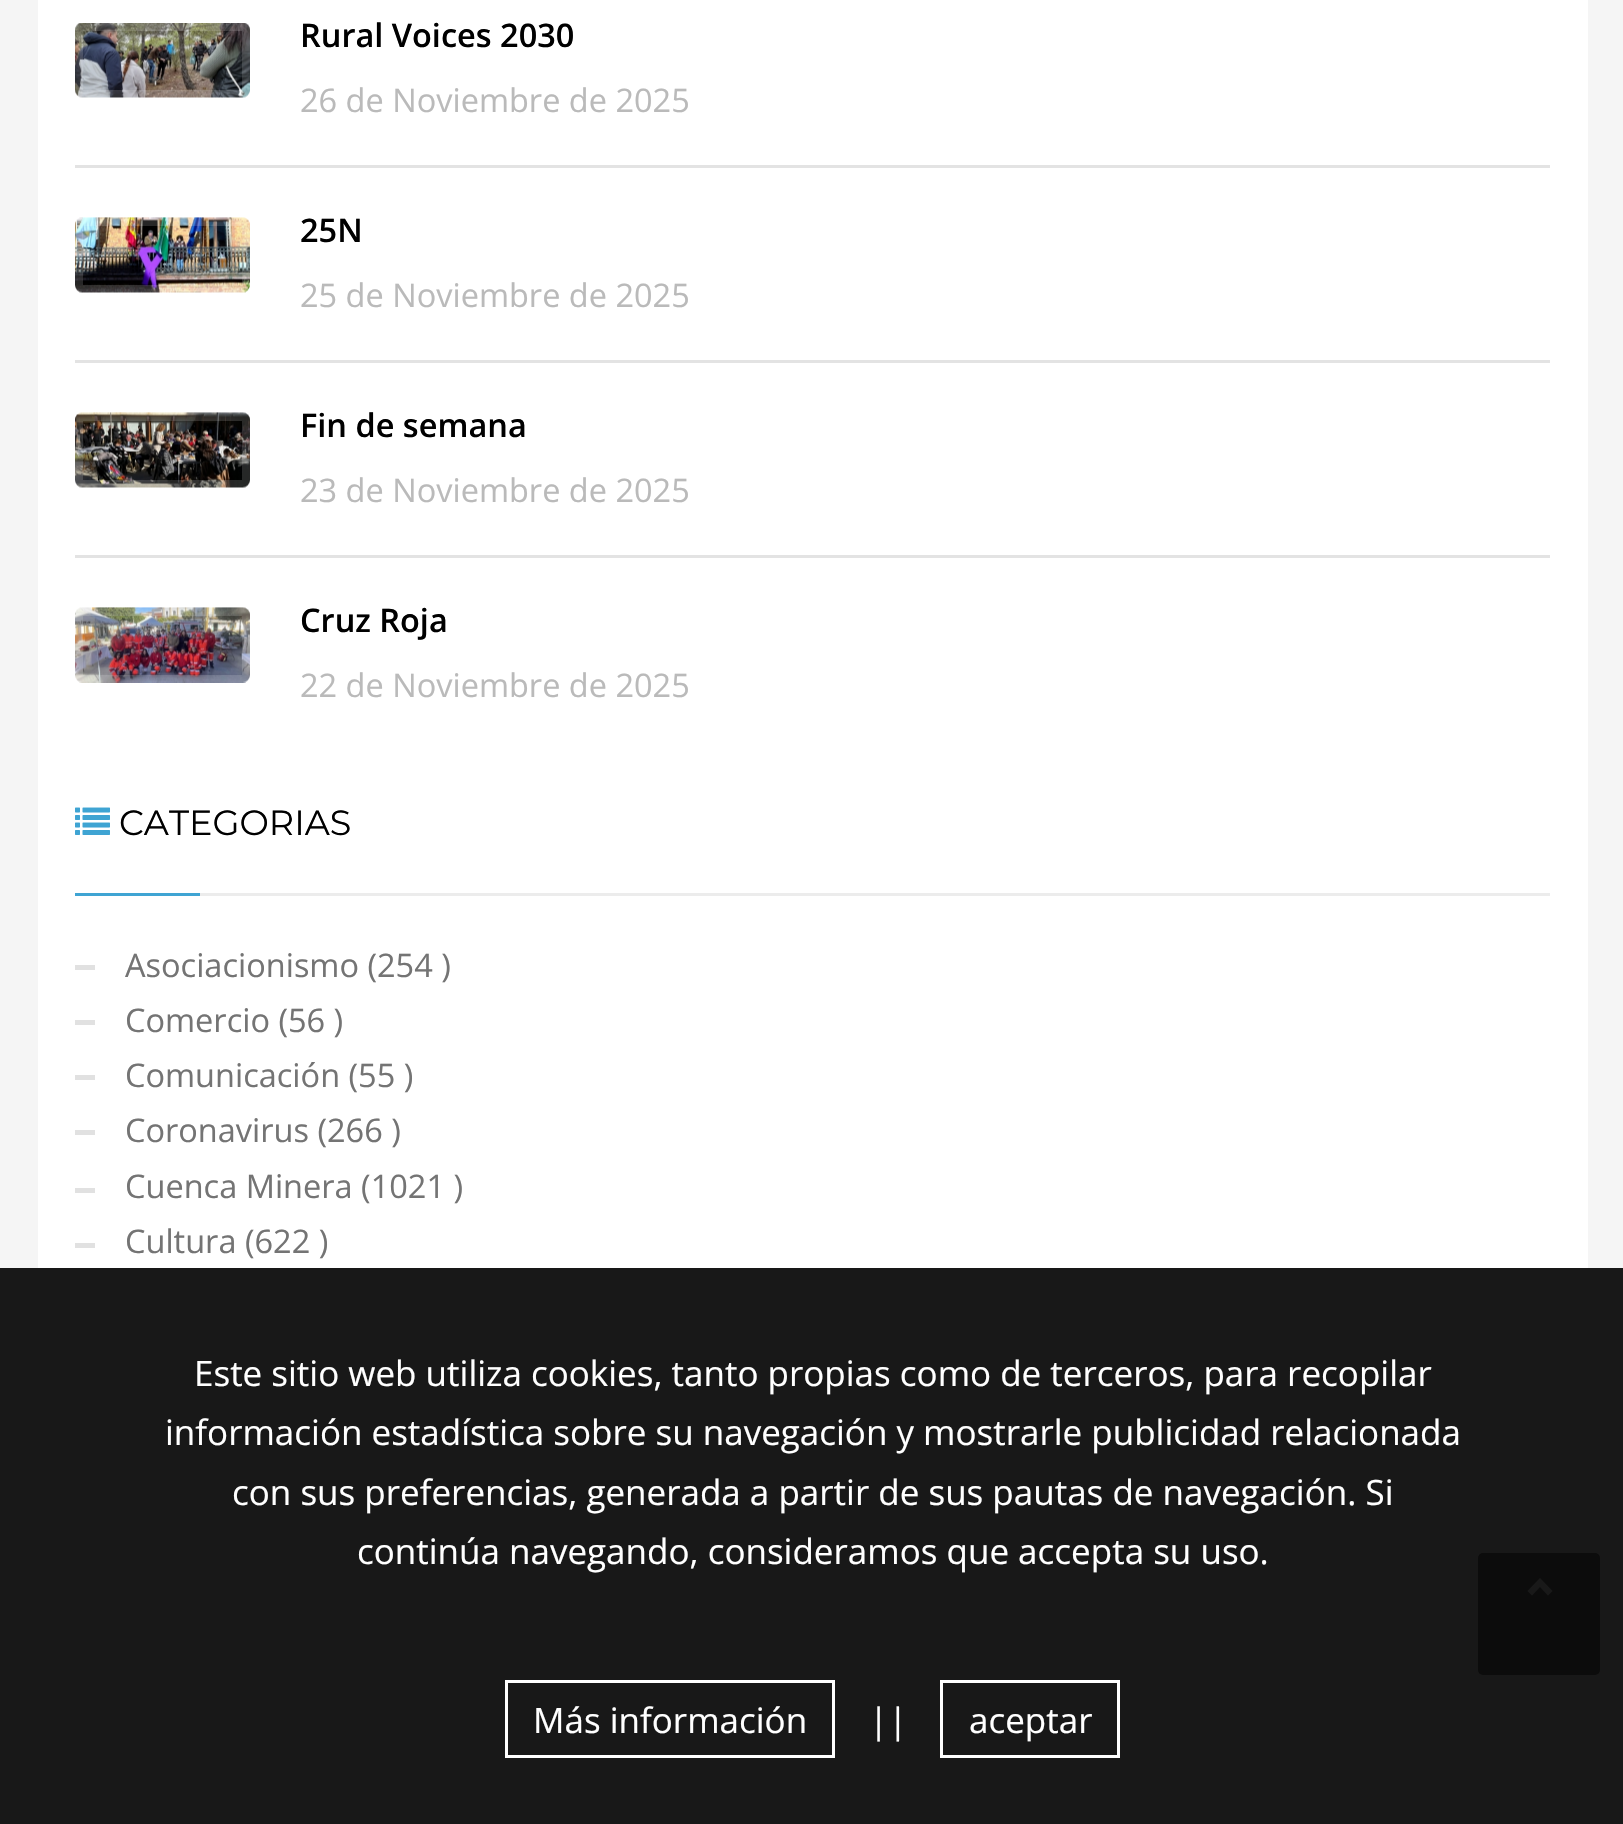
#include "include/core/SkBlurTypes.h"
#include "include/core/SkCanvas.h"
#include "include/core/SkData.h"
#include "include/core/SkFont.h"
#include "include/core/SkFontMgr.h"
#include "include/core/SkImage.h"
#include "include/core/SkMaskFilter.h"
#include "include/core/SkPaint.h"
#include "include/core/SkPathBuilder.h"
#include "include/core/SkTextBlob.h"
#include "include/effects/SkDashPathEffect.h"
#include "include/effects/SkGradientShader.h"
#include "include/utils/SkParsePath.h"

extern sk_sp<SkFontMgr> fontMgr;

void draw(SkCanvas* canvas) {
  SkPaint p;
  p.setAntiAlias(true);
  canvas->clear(SkColorSetRGB(245, 245, 245));
  p.setColor(SkColorSetRGB(24, 24, 24));
  canvas->drawRect(SkRect::MakeLTRB(0, 1268, 1623, 1824), p);
  p.setColor(SK_ColorWHITE);
  canvas->drawRect(SkRect::MakeLTRB(38, 0, 1588, 1268), p);
  p.setColor(SkColorSetRGB(227, 227, 227));
  canvas->drawRect(SkRect::MakeLTRB(75, 165, 1550, 168), p);
  canvas->drawImageRect(SkImages::DeferredFromEncodedData(SkData::MakeFromFileName("images/1.png")), SkRect::MakeLTRB(75, 23, 250, 98), SkSamplingOptions());
  p.setStyle(SkPaint::kStroke_Style);
  p.setStrokeWidth(8);
  p.setColor(SkColorSetARGB(38, 255, 255, 255));
  canvas->drawRoundRect(SkRect::MakeLTRB(79, 27, 246, 94), 4, 4, p);
  p.setStyle(SkPaint::kFill_Style);
  p.setColor(SkColorSetRGB(227, 227, 227));
  canvas->drawRect(SkRect::MakeLTRB(75, 360, 1550, 363), p);
  canvas->drawImageRect(SkImages::DeferredFromEncodedData(SkData::MakeFromFileName("images/2.png")), SkRect::MakeLTRB(75, 217, 250, 293), SkSamplingOptions());
  p.setStyle(SkPaint::kStroke_Style);
  p.setColor(SkColorSetARGB(38, 255, 255, 255));
  canvas->drawRoundRect(SkRect::MakeLTRB(79, 222, 246, 289), 4, 4, p);
  p.setStyle(SkPaint::kFill_Style);
  p.setColor(SkColorSetRGB(227, 227, 227));
  canvas->drawRect(SkRect::MakeLTRB(75, 555, 1550, 558), p);
  canvas->drawImageRect(SkImages::DeferredFromEncodedData(SkData::MakeFromFileName("images/3.png")), SkRect::MakeLTRB(75, 412, 250, 488), SkSamplingOptions());
  p.setStyle(SkPaint::kStroke_Style);
  p.setColor(SkColorSetARGB(38, 255, 255, 255));
  canvas->drawRoundRect(SkRect::MakeLTRB(79, 417, 246, 484), 4, 4, p);
  canvas->drawImageRect(SkImages::DeferredFromEncodedData(SkData::MakeFromFileName("images/4.png")), SkRect::MakeLTRB(75, 607, 250, 683), SkSamplingOptions());
  canvas->drawRoundRect(SkRect::MakeLTRB(79, 612, 246, 679), 4, 4, p);
  canvas->drawImageRect(SkImages::DeferredFromEncodedData(SkData::MakeFromFileName("images/5.png")), SkRect::MakeLTRB(75, 807, 110, 835), SkSamplingOptions());
  p.setStyle(SkPaint::kFill_Style);
  p.setColor(SkColorSetRGB(63, 164, 211));
  canvas->drawRect(SkRect::MakeLTRB(75, 893, 200, 896), p);
  p.setColor(SkColorSetRGB(236, 236, 236));
  canvas->drawRect(SkRect::MakeLTRB(200, 893, 1550, 896), p);
  p.setColor(SkColorSetRGB(225, 225, 225));
  canvas->drawRect(SkRect::MakeLTRB(75, 965, 95, 970), p);
  canvas->drawRect(SkRect::MakeLTRB(75, 1020, 95, 1025), p);
  canvas->drawRect(SkRect::MakeLTRB(75, 1075, 95, 1080), p);
  canvas->drawRect(SkRect::MakeLTRB(75, 1130, 95, 1135), p);
  canvas->drawRect(SkRect::MakeLTRB(75, 1188, 95, 1193), p);
  canvas->drawRect(SkRect::MakeLTRB(75, 1243, 95, 1248), p);
  p.setStyle(SkPaint::kStroke_Style);
  p.setStrokeWidth(3);
  p.setColor(SK_ColorWHITE);
  canvas->drawRect(SkRect::MakeLTRB(506.5f, 1681.5f, 833.5f, 1756.5f), p);
  canvas->drawRect(SkRect::MakeLTRB(941.5f, 1681.5f, 1118.5f, 1756.5f), p);
  p.setStyle(SkPaint::kFill_Style);
  p.setColor(SkColorSetARGB(179, 6, 6, 6));
  canvas->drawRoundRect(SkRect::MakeLTRB(1478, 1553, 1600, 1675), 5, 5, p);
  p.setColor(SkColorSetRGB(25, 25, 25));
  canvas->drawPath(SkPathBuilder().moveTo(1540, 1578).lineTo(1552.5f, 1591).lineTo(1548, 1595.5f).lineTo(1540, 1587).lineTo(1532, 1595.5f).lineTo(1527.5f, 1591).close().detach(), p);
  SkFont font1(fontMgr->matchFamilyStyle("Open Sans", SkFontStyle(600, SkFontStyle::kNormal_Width, SkFontStyle::kUpright_Slant)), 32.5f);
  font1.setSubpixel(true);
  p.setColor(SK_ColorBLACK);
  canvas->drawString("Rural Voices 2030", 300, 47, font1, p);
  SkFont font2(fontMgr->matchFamilyStyle("Open Sans", SkFontStyle::Normal()), 32.5f);
  font2.setSubpixel(true);
  p.setColor(SkColorSetRGB(186, 186, 186));
  canvas->drawString("26 de Noviembre de 2025", 300, 112, font2, p);
  p.setColor(SK_ColorBLACK);
  canvas->drawString("25N", 300, 242, font1, p);
  p.setColor(SkColorSetRGB(186, 186, 186));
  canvas->drawString("25 de Noviembre de 2025", 300, 307, font2, p);
  p.setColor(SK_ColorBLACK);
  canvas->drawString("Fin de semana", 300, 437, font1, p);
  p.setColor(SkColorSetRGB(186, 186, 186));
  canvas->drawString("23 de Noviembre de 2025", 300, 502, font2, p);
  p.setColor(SK_ColorBLACK);
  canvas->drawString("Cruz Roja", 300, 632, font1, p);
  p.setColor(SkColorSetRGB(186, 186, 186));
  canvas->drawString("22 de Noviembre de 2025", 300, 697, font2, p);
  SkFont font3(fontMgr->matchFamilyStyle("Montserrat", SkFontStyle::Normal()), 35);
  font3.setSubpixel(true);
  p.setColor(SK_ColorBLACK);
  canvas->drawString("CATEGORIAS", 119, 835, font3, p);
  p.setColor(SkColorSetRGB(116, 116, 116));
  canvas->drawString("Asociacionismo (254 )", 125, 977, font2, p);
  canvas->drawString("Comercio (56 )", 125, 1032, font2, p);
  canvas->drawString("Comunicación (55 )", 125, 1087, font2, p);
  canvas->drawString("Coronavirus (266 )", 125, 1142, font2, p);
  canvas->drawString("Cuenca Minera (1021 )", 125, 1198, font2, p);
  canvas->drawString("Cultura (622 )", 125, 1253, font2, p);
  SkFont font4(fontMgr->matchFamilyStyle("Open Sans", SkFontStyle::Normal()), 35);
  font4.setSubpixel(true);
  p.setColor(SK_ColorWHITE);
  canvas->drawString("Este sitio web utiliza cookies, tanto propias como de terceros, para recopilar", 194, 1386, font4, p);
  canvas->drawString("información estadística sobre su navegación y mostrarle publicidad relacionada", 165, 1445, font4, p);
  canvas->drawString("con sus preferencias, generada a partir de sus pautas de navegación. Si", 232, 1505, font4, p);
  canvas->drawString("continúa navegando, consideramos que accepta su uso.", 357, 1564, font4, p);
  canvas->drawString("Más información", 533, 1733, font4, p);
  canvas->drawString("||", 869, 1733, font4, p);
  canvas->drawString("aceptar", 969, 1733, font4, p);
}
